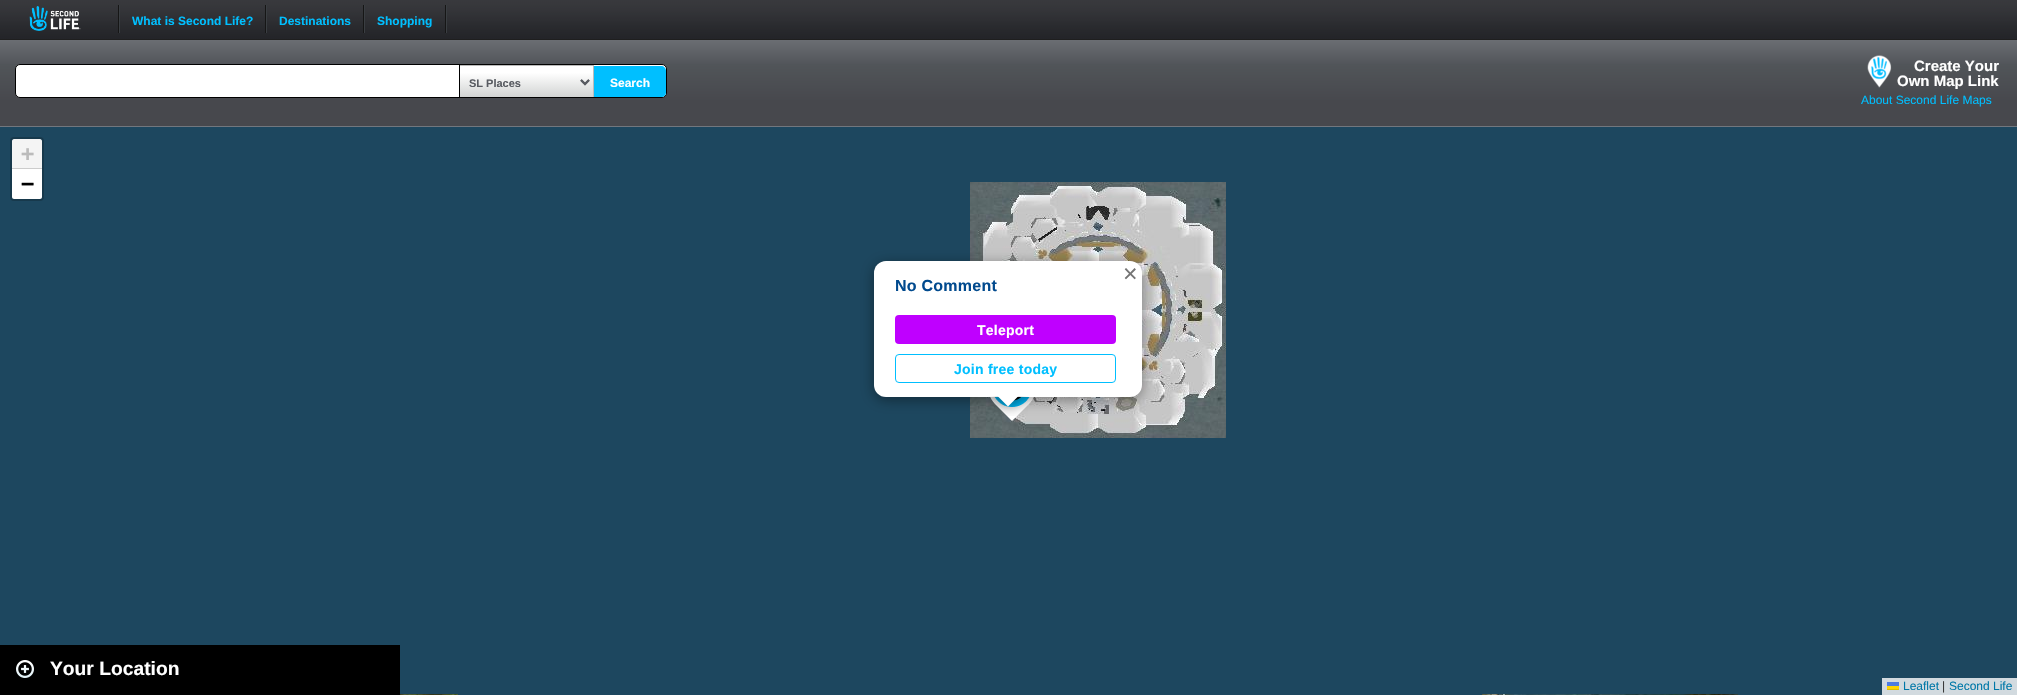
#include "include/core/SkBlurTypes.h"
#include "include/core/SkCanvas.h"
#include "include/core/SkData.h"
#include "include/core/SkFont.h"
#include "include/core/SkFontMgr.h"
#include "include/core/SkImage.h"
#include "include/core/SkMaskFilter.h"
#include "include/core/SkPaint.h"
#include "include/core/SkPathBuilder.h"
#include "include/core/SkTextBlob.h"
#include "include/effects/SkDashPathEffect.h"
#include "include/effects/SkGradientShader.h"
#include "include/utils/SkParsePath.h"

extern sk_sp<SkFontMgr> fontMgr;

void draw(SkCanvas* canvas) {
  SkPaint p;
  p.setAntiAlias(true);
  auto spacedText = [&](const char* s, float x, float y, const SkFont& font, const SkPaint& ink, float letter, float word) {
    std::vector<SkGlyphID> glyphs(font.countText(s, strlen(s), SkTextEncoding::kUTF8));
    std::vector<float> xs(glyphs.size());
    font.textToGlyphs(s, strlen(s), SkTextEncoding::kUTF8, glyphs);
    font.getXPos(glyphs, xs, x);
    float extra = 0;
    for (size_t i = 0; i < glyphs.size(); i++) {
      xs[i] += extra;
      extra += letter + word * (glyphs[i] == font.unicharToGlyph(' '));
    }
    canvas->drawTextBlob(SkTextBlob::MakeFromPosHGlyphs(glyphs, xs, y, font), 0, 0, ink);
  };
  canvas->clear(SkColorSetRGB(29, 71, 95));
  canvas->drawImageRect(SkImages::DeferredFromEncodedData(SkData::MakeFromFileName("images/1.png")), SkRect::MakeLTRB(0, 0, 2017, 40), SkSamplingOptions());
  canvas->drawImageRect(SkImages::DeferredFromEncodedData(SkData::MakeFromFileName("images/2.png")), SkRect::MakeLTRB(29, 6, 81, 31), SkSamplingOptions());
  p.setColor(SkColorSetRGB(58, 62, 66));
  canvas->drawRect(SkRect::MakeLTRB(119, 5, 120, 33), p);
  p.setColor(SkColorSetRGB(22, 22, 22));
  canvas->drawRect(SkRect::MakeLTRB(118, 5, 119, 33), p);
  p.setColor(SkColorSetRGB(58, 62, 66));
  canvas->drawRect(SkRect::MakeLTRB(266, 5, 267, 33), p);
  p.setColor(SkColorSetRGB(22, 22, 22));
  canvas->drawRect(SkRect::MakeLTRB(265, 5, 266, 33), p);
  p.setColor(SkColorSetRGB(58, 62, 66));
  canvas->drawRect(SkRect::MakeLTRB(364, 5, 365, 33), p);
  p.setColor(SkColorSetRGB(22, 22, 22));
  canvas->drawRect(SkRect::MakeLTRB(363, 5, 364, 33), p);
  p.setColor(SkColorSetRGB(58, 62, 66));
  canvas->drawRect(SkRect::MakeLTRB(446, 5, 447, 33), p);
  p.setColor(SkColorSetRGB(22, 22, 22));
  canvas->drawRect(SkRect::MakeLTRB(445, 5, 446, 33), p);
  {
    const SkColor colors[] = {SkColorSetRGB(71, 72, 77), SkColorSetRGB(81, 85, 89), SkColorSetRGB(107, 110, 115)};
    const float stops[] = {0.29f, 0.71f, 1};
    const SkPoint ends[] = {{0, 126}, {0, 40}};
    p.setShader(SkGradientShader::MakeLinear(ends, colors, stops, 3, SkTileMode::kClamp));
    p.setAlpha(255);
  }
  canvas->drawRect(SkRect::MakeLTRB(0, 40, 2017, 126), p);
  p.setShader(nullptr);
  p.setColor(SkColorSetRGB(114, 119, 126));
  canvas->drawRect(SkRect::MakeLTRB(0, 126, 2017, 127), p);
  p.setColor(SK_ColorWHITE);
  canvas->drawRoundRect(SkRect::MakeLTRB(15.5f, 64.5f, 666.5f, 97.5f), 4.5f, 4.5f, p);
  p.setStyle(SkPaint::kStroke_Style);
  p.setStrokeWidth(1);
  p.setColor(SK_ColorBLACK);
  canvas->drawRoundRect(SkRect::MakeLTRB(15.5f, 64.5f, 666.5f, 97.5f), 4.5f, 4.5f, p);
  canvas->drawImageRect(SkImages::DeferredFromEncodedData(SkData::MakeFromFileName("images/3.png")), SkRect::MakeLTRB(460, 66, 593, 97), SkSamplingOptions());
  p.setStyle(SkPaint::kFill_Style);
  p.setColor(SkColorSetRGB(187, 187, 187));
  canvas->drawRect(SkRect::MakeLTRB(459, 65, 594, 66), p);
  canvas->drawRect(SkRect::MakeLTRB(593, 65, 594, 97), p);
  p.setColor(SK_ColorBLACK);
  canvas->drawRect(SkRect::MakeLTRB(459, 65, 460, 97), p);
  p.setStyle(SkPaint::kStroke_Style);
  p.setStrokeWidth(2);
  p.setColor(SkColorSetRGB(89, 92, 98));
  canvas->drawPath(SkPathBuilder().moveTo(581, 80).lineTo(585, 84).lineTo(589, 80).detach(), p);
  canvas->save();
  canvas->clipPath(SkPathBuilder().moveTo(20, 65).lineTo(662, 65).cubicTo(664, 65, 666, 67, 666, 69).lineTo(666, 93).cubicTo(666, 95, 664, 97, 662, 97).lineTo(20, 97).cubicTo(18, 97, 16, 95, 16, 93).lineTo(16, 69).cubicTo(16, 67, 18, 65, 20, 65).close().detach(), true);
  p.setStyle(SkPaint::kFill_Style);
  p.setColor(SkColorSetRGB(0, 191, 255));
  canvas->drawPath(SkPathBuilder().moveTo(594, 66).lineTo(661, 66).cubicTo(664, 66, 666, 68, 666, 71).lineTo(666, 95).cubicTo(666, 98, 664, 100, 661, 100).lineTo(594, 100).close().detach(), p);
  canvas->restore();
  canvas->drawImageRect(SkImages::DeferredFromEncodedData(SkData::MakeFromFileName("images/4.png")), SkRect::MakeLTRB(1867, 55, 1892, 88), SkSamplingOptions());
  p.setStyle(SkPaint::kStroke_Style);
  p.setColor(SkColorSetRGB(23, 57, 76));
  canvas->drawRoundRect(SkRect::MakeLTRB(11, 138, 43, 200), 3, 3, p);
  p.setStyle(SkPaint::kFill_Style);
  p.setColor(SkColorSetRGB(244, 244, 244));
  canvas->drawPath(SkPathBuilder().moveTo(14, 139).lineTo(40, 139).cubicTo(41, 139, 42, 140, 42, 141).lineTo(42, 169).lineTo(12, 169).lineTo(12, 141).cubicTo(12, 140, 13, 139, 14, 139).close().detach(), p);
  p.setColor(SkColorSetRGB(204, 204, 204));
  canvas->drawRect(SkRect::MakeLTRB(12, 168, 42, 169), p);
  p.setColor(SK_ColorWHITE);
  canvas->drawPath(SkPathBuilder().moveTo(12, 169).lineTo(42, 169).lineTo(42, 197).cubicTo(42, 198, 41, 199, 40, 199).lineTo(14, 199).cubicTo(13, 199, 12, 198, 12, 197).close().detach(), p);
  p.setColor(SkColorSetRGB(210, 218, 223));
  canvas->drawRect(SkRect::MakeLTRB(1882, 678, 2017, 695), p);
  p.setColor(SkColorSetRGB(76, 123, 225));
  canvas->drawRect(SkRect::MakeLTRB(1887, 682, 1899, 686), p);
  p.setColor(SkColorSetRGB(255, 213, 0));
  canvas->drawRect(SkRect::MakeLTRB(1887, 686, 1899, 689), p);
  p.setColor(SkColorSetRGB(224, 188, 0));
  canvas->drawRect(SkRect::MakeLTRB(1887, 689, 1899, 690), p);
  canvas->drawImageRect(SkImages::DeferredFromEncodedData(SkData::MakeFromFileName("images/5.png")), SkRect::MakeLTRB(970, 182, 1226, 438), SkSamplingOptions());
  canvas->drawImageRect(SkImages::DeferredFromEncodedData(SkData::MakeFromFileName("images/6.png")), SkRect::MakeLTRB(400, 694, 458, 695), SkSamplingOptions());
  canvas->drawImageRect(SkImages::DeferredFromEncodedData(SkData::MakeFromFileName("images/7.png")), SkRect::MakeLTRB(1482, 694, 1738, 695), SkSamplingOptions());
  canvas->drawImageRect(SkImages::DeferredFromEncodedData(SkData::MakeFromFileName("images/8.png")), SkRect::MakeLTRB(990, 397, 1034, 421), SkSamplingOptions());
  p.setColor(SkColorSetARGB(102, 0, 0, 0));
  p.setMaskFilter(SkMaskFilter::MakeBlur(kNormal_SkBlurStyle, 7));
  canvas->drawRoundRect(SkRect::MakeLTRB(874, 264, 1142, 400), 12, 12, p);
  p.setMaskFilter(nullptr);
  p.setColor(SK_ColorWHITE);
  canvas->drawRoundRect(SkRect::MakeLTRB(874, 261, 1142, 397), 12, 12, p);
  p.setColor(SkColorSetRGB(191, 0, 255));
  canvas->drawRoundRect(SkRect::MakeLTRB(895, 315, 1116, 344), 4, 4, p);
  p.setStyle(SkPaint::kStroke_Style);
  p.setStrokeWidth(1);
  p.setColor(SkColorSetRGB(0, 191, 255));
  canvas->drawRoundRect(SkRect::MakeLTRB(895.5f, 354.5f, 1115.5f, 382.5f), 3.5f, 3.5f, p);
  canvas->save();
  canvas->clipRect(SkRect::MakeLTRB(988, 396, 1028, 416));
  p.setStyle(SkPaint::kFill_Style);
  p.setColor(SkColorSetARGB(102, 0, 0, 0));
  p.setMaskFilter(SkMaskFilter::MakeBlur(kNormal_SkBlurStyle, 7));
  canvas->drawRect(SkRect::MakeLTRB(1000, 389, 1017, 406), p);
  p.setMaskFilter(nullptr);
  canvas->restore();
  canvas->save();
  canvas->clipRect(SkRect::MakeLTRB(988, 396, 1028, 416));
  p.setColor(SK_ColorWHITE);
  canvas->drawPath(SkPathBuilder().moveTo(1008, 382.5f).lineTo(1020, 394.5f).lineTo(1008, 406.5f).lineTo(996, 394.5f).close().detach(), p);
  canvas->restore();
  p.setColor(SK_ColorBLACK);
  canvas->drawRect(SkRect::MakeLTRB(0, 645, 400, 695), p);
  canvas->drawImageRect(SkImages::DeferredFromEncodedData(SkData::MakeFromFileName("images/9.png")), SkRect::MakeLTRB(16, 660, 34, 678), SkSamplingOptions());
  SkFont font1(fontMgr->matchFamilyStyle("Liberation Sans", SkFontStyle::Bold()), 12);
  font1.setSubpixel(true);
  p.setColor(SkColorSetRGB(0, 191, 255));
  canvas->drawString("What is Second Life?", 132, 25, font1, p);
  canvas->drawString("Destinations", 279, 25, font1, p);
  canvas->drawString("Shopping", 377, 25, font1, p);
  SkFont font2(fontMgr->matchFamilyStyle("Liberation Sans", SkFontStyle::Bold()), 11);
  font2.setSubpixel(true);
  p.setColor(SkColorSetRGB(89, 92, 98));
  canvas->drawString("SL Places", 469, 87, font2, p);
  p.setColor(SK_ColorWHITE);
  canvas->drawString("Search", 610, 87, font1, p);
  SkFont font3(fontMgr->matchFamilyStyle("Liberation Sans", SkFontStyle::Bold()), 15);
  font3.setSubpixel(true);
  canvas->drawString("Create Your", 1914, 71, font3, p);
  canvas->drawString("Own Map Link", 1897, 86, font3, p);
  SkFont font4(fontMgr->matchFamilyStyle("Liberation Sans", SkFontStyle::Normal()), 12);
  font4.setSubpixel(true);
  p.setColor(SkColorSetRGB(0, 191, 255));
  canvas->drawString("About Second Life Maps", 1861, 104, font4, p);
  SkFont font5(fontMgr->matchFamilyStyle("DejaVu Sans Mono", SkFontStyle::Bold()), 22);
  font5.setSubpixel(true);
  p.setColor(SkColorSetRGB(187, 187, 187));
  canvas->drawString("+", 21, 161, font5, p);
  p.setColor(SK_ColorBLACK);
  canvas->drawString("−", 21, 191, font5, p);
  p.setColor(SkColorSetRGB(0, 120, 168));
  canvas->drawString("Leaflet", 1903, 690, font4, p);
  p.setColor(SkColorSetRGB(51, 51, 51));
  canvas->drawString("|", 1942, 690, font4, p);
  p.setColor(SkColorSetRGB(0, 120, 168));
  canvas->drawString("Second Life", 1949, 690, font4, p);
  SkFont font6(fontMgr->matchFamilyStyle("Liberation Sans", SkFontStyle::Normal()), 25);
  font6.setSubpixel(true);
  p.setColor(SkColorSetRGB(117, 117, 117));
  canvas->drawString("×", 1123, 282, font6, p);
  SkFont font7(fontMgr->matchFamilyStyle("Liberation Sans", SkFontStyle::Bold()), 16);
  font7.setSubpixel(true);
  p.setColor(SkColorSetRGB(1, 74, 142));
  spacedText("No Comment", 895, 291, font7, p, 0.25f, 0);
  SkFont font8(fontMgr->matchFamilyStyle("Liberation Sans", SkFontStyle::Bold()), 14);
  font8.setSubpixel(true);
  p.setColor(SK_ColorWHITE);
  spacedText("Teleport", 977, 335, font8, p, 0.25f, 0);
  p.setColor(SkColorSetRGB(0, 191, 255));
  spacedText("Join free today", 954, 374, font8, p, 0.25f, 0);
  SkFont font9(fontMgr->matchFamilyStyle("Liberation Sans", SkFontStyle::Bold()), 19.25f);
  font9.setSubpixel(true);
  p.setColor(SK_ColorWHITE);
  canvas->drawString("Your Location", 50, 675, font9, p);
}
